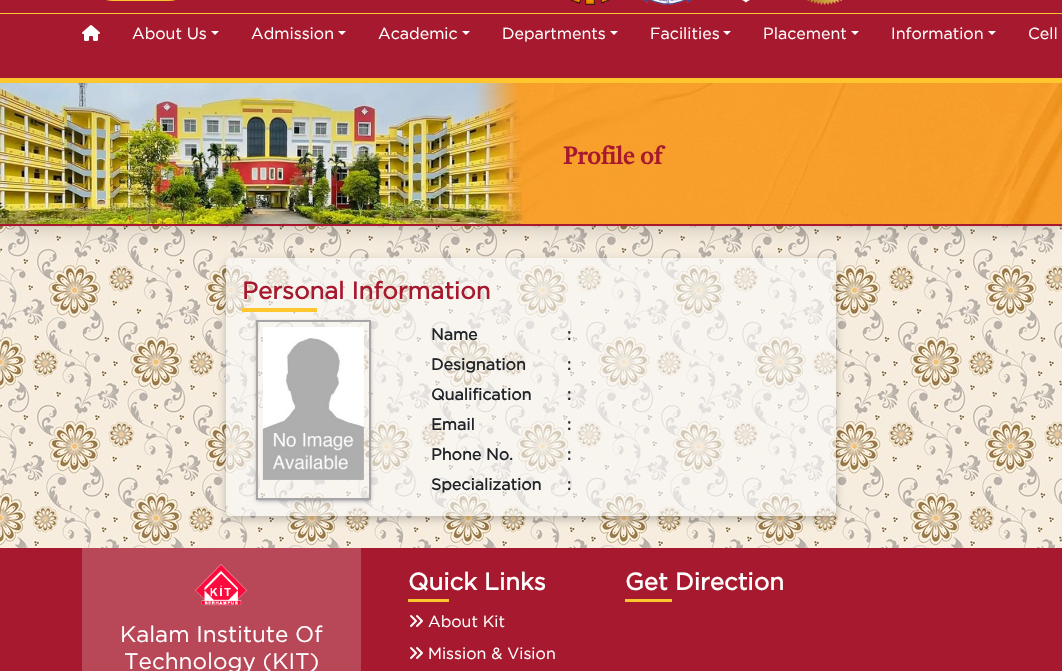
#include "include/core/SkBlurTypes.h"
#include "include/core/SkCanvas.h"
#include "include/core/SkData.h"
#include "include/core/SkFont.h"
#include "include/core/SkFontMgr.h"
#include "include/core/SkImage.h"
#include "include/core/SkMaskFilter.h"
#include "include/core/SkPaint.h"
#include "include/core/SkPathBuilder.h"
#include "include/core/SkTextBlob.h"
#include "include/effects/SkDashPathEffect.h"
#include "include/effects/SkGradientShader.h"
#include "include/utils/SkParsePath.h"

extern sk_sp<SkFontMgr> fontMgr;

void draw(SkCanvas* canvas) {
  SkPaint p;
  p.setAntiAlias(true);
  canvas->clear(SK_ColorWHITE);
  canvas->drawImageRect(SkImages::DeferredFromEncodedData(SkData::MakeFromFileName("images/1.png")), SkRect::MakeLTRB(0, 226, 1062, 548), SkSamplingOptions());
  p.setColor(SkColorSetRGB(166, 25, 46));
  canvas->drawRect(SkRect::MakeLTRB(0, 0, 1062, 13), p);
  p.setColor(SkColorSetRGB(255, 198, 45));
  canvas->drawRoundRect(SkRect::MakeLTRB(85, -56, 197, 1), 56, 56, p);
  canvas->drawImageRect(SkImages::DeferredFromEncodedData(SkData::MakeFromFileName("images/2.png")), SkRect::MakeLTRB(570, 0, 610, 5), SkSamplingOptions());
  canvas->drawImageRect(SkImages::DeferredFromEncodedData(SkData::MakeFromFileName("images/3.png")), SkRect::MakeLTRB(643, 0, 692, 5), SkSamplingOptions());
  canvas->drawImageRect(SkImages::DeferredFromEncodedData(SkData::MakeFromFileName("images/4.png")), SkRect::MakeLTRB(742, 0, 750, 3), SkSamplingOptions());
  canvas->drawImageRect(SkImages::DeferredFromEncodedData(SkData::MakeFromFileName("images/5.png")), SkRect::MakeLTRB(807, 0, 842, 5), SkSamplingOptions());
  p.setColor(SkColorSetARGB(26, 0, 0, 0));
  p.setMaskFilter(SkMaskFilter::MakeBlur(kNormal_SkBlurStyle, 7.5f));
  canvas->drawRect(SkRect::MakeLTRB(3, 96, 1059, 233), p);
  p.setMaskFilter(nullptr);
  p.setColor(SkColorSetRGB(166, 25, 46));
  canvas->drawRect(SkRect::MakeLTRB(0, 14, 1062, 78), p);
  p.setColor(SkColorSetRGB(255, 198, 45));
  canvas->drawRect(SkRect::MakeLTRB(0, 13, 1062, 14), p);
  p.setColor(SkColorSetARGB(13, 0, 0, 0));
  p.setMaskFilter(SkMaskFilter::MakeBlur(kNormal_SkBlurStyle, 3));
  canvas->drawRect(SkRect::MakeLTRB(2, 89, 1060, 228), p);
  p.setMaskFilter(nullptr);
  p.setColor(SkColorSetRGB(255, 198, 45));
  canvas->drawRect(SkRect::MakeLTRB(0, 78, 1062, 83), p);
  canvas->drawImageRect(SkImages::DeferredFromEncodedData(SkData::MakeFromFileName("images/6.png")), SkRect::MakeLTRB(82, 25, 100, 41), SkSamplingOptions());
  p.setColor(SK_ColorWHITE);
  canvas->drawPath(SkPathBuilder().moveTo(211, 31).lineTo(219, 31).lineTo(215, 35).close().detach(), p);
  canvas->drawPath(SkPathBuilder().moveTo(338, 31).lineTo(346, 31).lineTo(342, 35).close().detach(), p);
  canvas->drawPath(SkPathBuilder().moveTo(462, 31).lineTo(470, 31).lineTo(466, 35).close().detach(), p);
  canvas->drawPath(SkPathBuilder().moveTo(610, 31).lineTo(618, 31).lineTo(614, 35).close().detach(), p);
  canvas->drawPath(SkPathBuilder().moveTo(723, 31).lineTo(731, 31).lineTo(727, 35).close().detach(), p);
  canvas->drawPath(SkPathBuilder().moveTo(851, 31).lineTo(859, 31).lineTo(855, 35).close().detach(), p);
  canvas->drawPath(SkPathBuilder().moveTo(988, 31).lineTo(996, 31).lineTo(992, 35).close().detach(), p);
  canvas->drawImageRect(SkImages::DeferredFromEncodedData(SkData::MakeFromFileName("images/7.png")), SkRect::MakeLTRB(0, 83, 1062, 224), SkSamplingOptions());
  p.setColor(SkColorSetRGB(166, 25, 46));
  canvas->drawRect(SkRect::MakeLTRB(0, 224, 1062, 226), p);
  canvas->save();
  canvas->clipPath(SkPathBuilder(SkPathFillType::kEvenOdd).moveTo(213, 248).lineTo(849, 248).lineTo(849, 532).lineTo(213, 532).close().moveTo(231, 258).lineTo(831, 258).cubicTo(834, 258, 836, 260, 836, 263).lineTo(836, 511).cubicTo(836, 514, 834, 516, 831, 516).lineTo(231, 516).cubicTo(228, 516, 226, 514, 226, 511).lineTo(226, 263).cubicTo(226, 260, 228, 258, 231, 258).close().detach(), true);
  p.setColor(SkColorSetARGB(61, 0, 0, 0));
  p.setMaskFilter(SkMaskFilter::MakeBlur(kNormal_SkBlurStyle, 4));
  canvas->drawRoundRect(SkRect::MakeLTRB(226, 261, 836, 519), 5, 5, p);
  p.setMaskFilter(nullptr);
  canvas->restore();
  p.setColor(SkColorSetARGB(163, 249, 249, 248));
  canvas->drawRoundRect(SkRect::MakeLTRB(226, 258, 836, 516), 5, 5, p);
  p.setColor(SkColorSetRGB(255, 198, 45));
  canvas->drawRect(SkRect::MakeLTRB(242, 308, 317, 312), p);
  canvas->save();
  canvas->clipPath(SkPathBuilder(SkPathFillType::kEvenOdd).moveTo(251, 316).lineTo(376, 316).lineTo(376, 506).lineTo(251, 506).close().moveTo(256, 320).lineTo(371, 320).lineTo(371, 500).lineTo(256, 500).close().detach(), true);
  p.setColor(SkColorSetARGB(77, 0, 0, 0));
  p.setMaskFilter(SkMaskFilter::MakeBlur(kNormal_SkBlurStyle, 1.5f));
  canvas->drawRect(SkRect::MakeLTRB(257, 322, 370, 500), p);
  p.setMaskFilter(nullptr);
  canvas->restore();
  canvas->save();
  canvas->clipPath(SkPathBuilder(SkPathFillType::kEvenOdd).moveTo(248, 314).lineTo(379, 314).lineTo(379, 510).lineTo(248, 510).close().moveTo(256, 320).lineTo(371, 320).lineTo(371, 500).lineTo(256, 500).close().detach(), true);
  p.setColor(SkColorSetARGB(64, 50, 50, 93));
  p.setMaskFilter(SkMaskFilter::MakeBlur(kNormal_SkBlurStyle, 2.5f));
  canvas->drawRect(SkRect::MakeLTRB(257, 323, 370, 501), p);
  p.setMaskFilter(nullptr);
  canvas->restore();
  p.setStyle(SkPaint::kStroke_Style);
  p.setStrokeWidth(2);
  p.setColor(SkColorSetRGB(167, 165, 165));
  canvas->drawRect(SkRect::MakeLTRB(257, 321, 370, 499), p);
  canvas->drawImageRect(SkImages::DeferredFromEncodedData(SkData::MakeFromFileName("images/8.png")), SkRect::MakeLTRB(262, 327, 364, 480), SkSamplingOptions());
  p.setStyle(SkPaint::kFill_Style);
  p.setColor(SkColorSetRGB(166, 25, 46));
  canvas->drawRect(SkRect::MakeLTRB(0, 548, 1062, 671), p);
  p.setColor(SkColorSetRGB(255, 198, 45));
  canvas->drawRect(SkRect::MakeLTRB(408, 599, 449, 602), p);
  canvas->drawImageRect(SkImages::DeferredFromEncodedData(SkData::MakeFromFileName("images/9.png")), SkRect::MakeLTRB(410, 615, 423, 627), SkSamplingOptions());
  canvas->drawImageRect(SkImages::DeferredFromEncodedData(SkData::MakeFromFileName("images/9.png")), SkRect::MakeLTRB(410, 647, 423, 659), SkSamplingOptions());
  canvas->drawRect(SkRect::MakeLTRB(625, 599, 672, 602), p);
  p.setColor(SkColorSetRGB(184, 71, 88));
  canvas->drawRect(SkRect::MakeLTRB(82, 548, 361, 671), p);
  canvas->drawImageRect(SkImages::DeferredFromEncodedData(SkData::MakeFromFileName("images/10.png")), SkRect::MakeLTRB(195, 564, 247, 606), SkSamplingOptions());
  SkFont font1(fontMgr->matchFamilyStyle("Gotham", SkFontStyle::Normal()), 16);
  font1.setSubpixel(true);
  p.setColor(SK_ColorWHITE);
  canvas->drawString("About Us", 132, 39, font1, p);
  canvas->drawString("Admission", 251, 39, font1, p);
  canvas->drawString("Academic", 378, 39, font1, p);
  canvas->drawString("Departments", 502, 39, font1, p);
  canvas->drawString("Facilities", 650, 39, font1, p);
  canvas->drawString("Placement", 763, 39, font1, p);
  canvas->drawString("Information", 891, 39, font1, p);
  canvas->drawString("Cell", 1028, 39, font1, p);
  SkFont font2(fontMgr->matchFamilyStyle("Castoro", SkFontStyle::Bold()), 24);
  font2.setSubpixel(true);
  p.setColor(SkColorSetRGB(166, 25, 46));
  canvas->drawString("Profile of", 563, 164, font2, p);
  SkFont font3(fontMgr->matchFamilyStyle("Gotham", SkFontStyle::Bold()), 24);
  font3.setSubpixel(true);
  canvas->drawString("Personal Information", 242, 299, font3, p);
  SkFont font4(fontMgr->matchFamilyStyle("Gotham", SkFontStyle::Bold()), 16);
  font4.setSubpixel(true);
  p.setColor(SkColorSetRGB(33, 37, 41));
  canvas->drawString("Name", 431, 340, font4, p);
  canvas->drawString(":", 567, 340, font4, p);
  canvas->drawString("Designation", 431, 370, font4, p);
  canvas->drawString(":", 567, 370, font4, p);
  canvas->drawString("Qualification", 431, 400, font4, p);
  canvas->drawString(":", 567, 400, font4, p);
  canvas->drawString("Email", 431, 430, font4, p);
  canvas->drawString(":", 567, 430, font4, p);
  canvas->drawString("Phone No.", 431, 460, font4, p);
  canvas->drawString(":", 567, 460, font4, p);
  canvas->drawString("Specialization", 431, 490, font4, p);
  canvas->drawString(":", 567, 490, font4, p);
  p.setColor(SK_ColorWHITE);
  canvas->drawString("Quick Links", 408, 590, font3, p);
  canvas->drawString("About Kit", 428, 627, font1, p);
  canvas->drawString("Mission & Vision", 428, 659, font1, p);
  canvas->drawString("Get Direction", 625, 590, font3, p);
  SkFont font5(fontMgr->matchFamilyStyle("Gotham", SkFontStyle::Normal()), 22.5f);
  font5.setSubpixel(true);
  canvas->drawString("Kalam Institute Of", 120, 642, font5, p);
  canvas->drawString("Technology (KIT)", 124, 669, font5, p);
}
